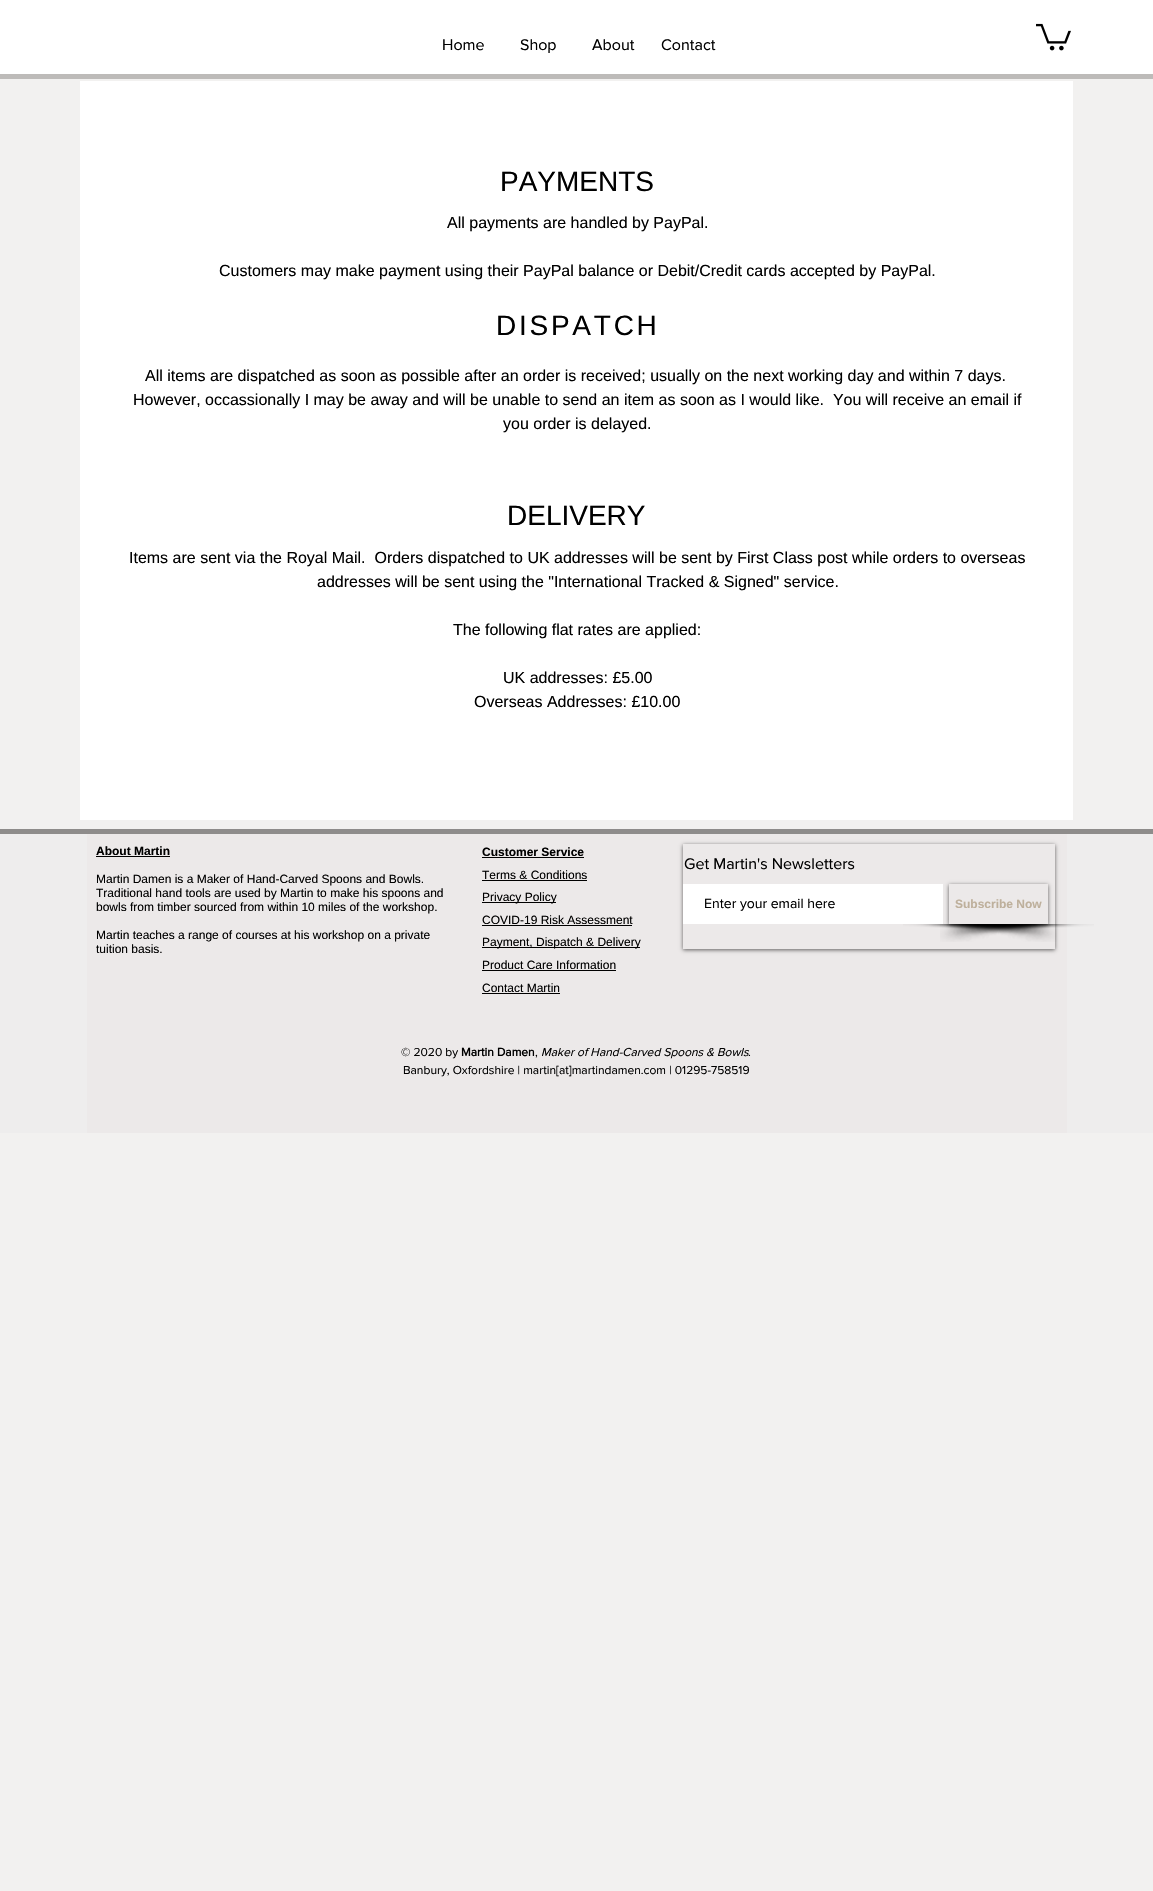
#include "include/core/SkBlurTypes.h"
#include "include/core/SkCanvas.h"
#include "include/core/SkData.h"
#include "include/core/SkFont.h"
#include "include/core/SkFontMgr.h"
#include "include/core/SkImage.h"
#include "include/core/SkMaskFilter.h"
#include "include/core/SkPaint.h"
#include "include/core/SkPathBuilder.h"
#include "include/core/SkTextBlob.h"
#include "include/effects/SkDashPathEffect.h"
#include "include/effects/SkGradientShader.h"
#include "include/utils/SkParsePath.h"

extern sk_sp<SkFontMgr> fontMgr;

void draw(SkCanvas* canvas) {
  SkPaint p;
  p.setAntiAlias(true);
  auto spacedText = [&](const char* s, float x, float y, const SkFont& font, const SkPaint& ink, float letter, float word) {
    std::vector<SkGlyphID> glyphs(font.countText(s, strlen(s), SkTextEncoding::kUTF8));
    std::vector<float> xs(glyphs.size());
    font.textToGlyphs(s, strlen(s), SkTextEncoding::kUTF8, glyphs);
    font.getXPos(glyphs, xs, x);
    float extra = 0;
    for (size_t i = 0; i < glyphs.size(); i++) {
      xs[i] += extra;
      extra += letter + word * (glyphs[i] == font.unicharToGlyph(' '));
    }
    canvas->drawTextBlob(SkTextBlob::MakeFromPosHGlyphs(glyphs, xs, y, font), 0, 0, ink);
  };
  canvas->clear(SkColorSetRGB(242, 241, 240));
  p.setColor(SK_ColorWHITE);
  canvas->drawRect(SkRect::MakeLTRB(0, 0, 1153, 74), p);
  p.setColor(SkColorSetRGB(189, 187, 185));
  canvas->drawRect(SkRect::MakeLTRB(0, 74, 1153, 79), p);
  canvas->drawImageRect(SkImages::DeferredFromEncodedData(SkData::MakeFromFileName("images/1.png")), SkRect::MakeLTRB(1036, 23, 1071, 51), SkSamplingOptions());
  p.setColor(SK_ColorWHITE);
  canvas->drawRect(SkRect::MakeLTRB(80, 81, 1073, 820), p);
  p.setColor(SkColorSetRGB(238, 237, 237));
  canvas->drawRect(SkRect::MakeLTRB(0, 834, 1153, 1133), p);
  p.setColor(SkColorSetRGB(142, 140, 139));
  canvas->drawRect(SkRect::MakeLTRB(0, 829, 1153, 834), p);
  p.setColor(SkColorSetRGB(236, 233, 233));
  canvas->drawRect(SkRect::MakeLTRB(87, 834, 1067, 1133), p);
  p.setColor(SK_ColorBLACK);
  canvas->drawRect(SkRect::MakeLTRB(96, 856, 170, 857), p);
  canvas->drawRect(SkRect::MakeLTRB(482, 857, 584, 858), p);
  canvas->drawRect(SkRect::MakeLTRB(482, 880, 587, 881), p);
  canvas->drawRect(SkRect::MakeLTRB(482, 902, 556, 903), p);
  canvas->drawRect(SkRect::MakeLTRB(482, 925, 632, 926), p);
  canvas->drawRect(SkRect::MakeLTRB(482, 947, 640, 948), p);
  canvas->drawRect(SkRect::MakeLTRB(482, 970, 616, 971), p);
  canvas->drawRect(SkRect::MakeLTRB(482, 993, 560, 994), p);
  canvas->save();
  canvas->clipPath(SkPathBuilder(SkPathFillType::kEvenOdd).moveTo(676, 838).lineTo(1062, 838).lineTo(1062, 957).lineTo(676, 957).close().moveTo(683, 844).lineTo(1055, 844).lineTo(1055, 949).lineTo(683, 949).close().detach(), true);
  p.setColor(SkColorSetARGB(153, 0, 0, 0));
  p.setMaskFilter(SkMaskFilter::MakeBlur(kNormal_SkBlurStyle, 2));
  canvas->drawRect(SkRect::MakeLTRB(683, 845, 1055, 950), p);
  p.setMaskFilter(nullptr);
  canvas->restore();
  p.setColor(SK_ColorWHITE);
  canvas->drawRect(SkRect::MakeLTRB(683, 884, 943, 924), p);
  canvas->drawImageRect(SkImages::DeferredFromEncodedData(SkData::MakeFromFileName("images/3.png")), SkRect::MakeLTRB(940, 924, 1094, 942), SkSamplingOptions());
  canvas->drawImageRect(SkImages::DeferredFromEncodedData(SkData::MakeFromFileName("images/2.png")), SkRect::MakeLTRB(903, 924, 1057, 942), SkSamplingOptions());
  canvas->save();
  canvas->clipPath(SkPathBuilder(SkPathFillType::kEvenOdd).moveTo(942, 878).lineTo(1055, 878).lineTo(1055, 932).lineTo(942, 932).close().moveTo(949, 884).lineTo(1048, 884).lineTo(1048, 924).lineTo(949, 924).close().detach(), true);
  p.setColor(SkColorSetARGB(153, 0, 0, 0));
  p.setMaskFilter(SkMaskFilter::MakeBlur(kNormal_SkBlurStyle, 2));
  canvas->drawRect(SkRect::MakeLTRB(949, 885, 1048, 925), p);
  p.setMaskFilter(nullptr);
  canvas->restore();
  SkFont font1(fontMgr->matchFamilyStyle("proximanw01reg", SkFontStyle::Normal()), 16);
  font1.setSubpixel(true);
  p.setColor(SK_ColorBLACK);
  canvas->drawString("Home", 442, 50, font1, p);
  canvas->drawString("Shop", 520, 50, font1, p);
  canvas->drawString("About", 592, 50, font1, p);
  canvas->drawString("Contact", 661, 50, font1, p);
  SkFont font2(fontMgr->matchFamilyStyle("Liberation Sans", SkFontStyle::Normal()), 28);
  font2.setSubpixel(true);
  canvas->drawString("PAYMENTS", 500, 191, font2, p);
  SkFont font3(fontMgr->matchFamilyStyle("Liberation Sans", SkFontStyle::Normal()), 16);
  font3.setSubpixel(true);
  canvas->drawString("All payments are handled by PayPal.", 447, 228, font3, p);
  canvas->drawString("Customers may make payment using their PayPal balance or Debit/Credit cards accepted by PayPal.", 219, 276, font3, p);
  spacedText("DISPATCH", 496, 335, font2, p, 2.75f, 0);
  canvas->drawString("All items are dispatched as soon as possible after an order is received; usually on the next working day and within 7 days.", 145, 381, font3, p);
  canvas->drawString("However, occassionally I may be away and will be unable to send an item as soon as I would like.  You will receive an email if", 133, 405, font3, p);
  canvas->drawString("you order is delayed.", 503, 429, font3, p);
  canvas->drawString("DELIVERY", 507, 525, font2, p);
  canvas->drawString("Items are sent via the Royal Mail.  Orders dispatched to UK addresses will be sent by First Class post while orders to overseas", 129, 563, font3, p);
  canvas->drawString("addresses will be sent using the \"International Tracked & Signed\" service.", 317, 587, font3, p);
  canvas->drawString("The following flat rates are applied:", 453, 635, font3, p);
  canvas->drawString("UK addresses: £5.00", 503, 683, font3, p);
  canvas->drawString("Overseas Addresses: £10.00", 474, 707, font3, p);
  SkFont font4(fontMgr->matchFamilyStyle("Liberation Sans", SkFontStyle::Bold()), 12);
  font4.setSubpixel(true);
  canvas->drawString("About Martin", 96, 855, font4, p);
  SkFont font5(fontMgr->matchFamilyStyle("Liberation Sans", SkFontStyle::Normal()), 12);
  font5.setSubpixel(true);
  canvas->drawString("Martin Damen is a Maker of Hand-Carved Spoons and Bowls.", 96, 883, font5, p);
  canvas->drawString("Traditional hand tools are used by Martin to make his spoons and", 96, 897, font5, p);
  canvas->drawString("bowls from timber sourced from within 10 miles of the workshop.", 96, 911, font5, p);
  canvas->drawString("Martin teaches a range of courses at his workshop on a private", 96, 939, font5, p);
  canvas->drawString("tuition basis.", 96, 953, font5, p);
  canvas->drawString("Customer Service", 482, 856, font4, p);
  canvas->drawString("Terms & Conditions", 482, 879, font5, p);
  canvas->drawString("Privacy Policy", 482, 901, font5, p);
  canvas->drawString("COVID-19 Risk Assessment", 482, 924, font5, p);
  canvas->drawString("Payment, Dispatch & Delivery", 482, 946, font5, p);
  canvas->drawString("Product Care Information", 482, 969, font5, p);
  canvas->drawString("Contact Martin", 482, 992, font5, p);
  canvas->drawString("Get Martin's Newsletters", 684, 869, font1, p);
  SkFont font6(fontMgr->matchFamilyStyle("proximanw01reg", SkFontStyle::Normal()), 14);
  font6.setSubpixel(true);
  canvas->drawString("Enter your email here", 704, 908, font6, p);
  p.setColor(SkColorSetRGB(190, 176, 156));
  canvas->drawString("Subscribe Now", 955, 908, font4, p);
  SkFont font7(fontMgr->matchFamilyStyle("proximanw01reg", SkFontStyle::Normal()), 12);
  font7.setSubpixel(true);
  p.setColor(SK_ColorBLACK);
  canvas->drawString("© 2020 by", 401, 1056, font7, p);
  SkFont font8(fontMgr->matchFamilyStyle("proximanw01reg", SkFontStyle::Bold()), 12);
  font8.setSubpixel(true);
  canvas->drawString("Martin Damen", 461, 1056, font8, p);
  canvas->drawString(",", 535, 1056, font7, p);
  SkFont font9(fontMgr->matchFamilyStyle("proximanw01reg", SkFontStyle::Italic()), 12);
  font9.setSubpixel(true);
  canvas->drawString("Maker of Hand-Carved Spoons & Bowls", 541, 1056, font9, p);
  canvas->drawString(".", 748, 1056, font7, p);
  canvas->drawString("Banbury, Oxfordshire | martin[at]martindamen.com | 01295-758519", 403, 1074, font7, p);
}
